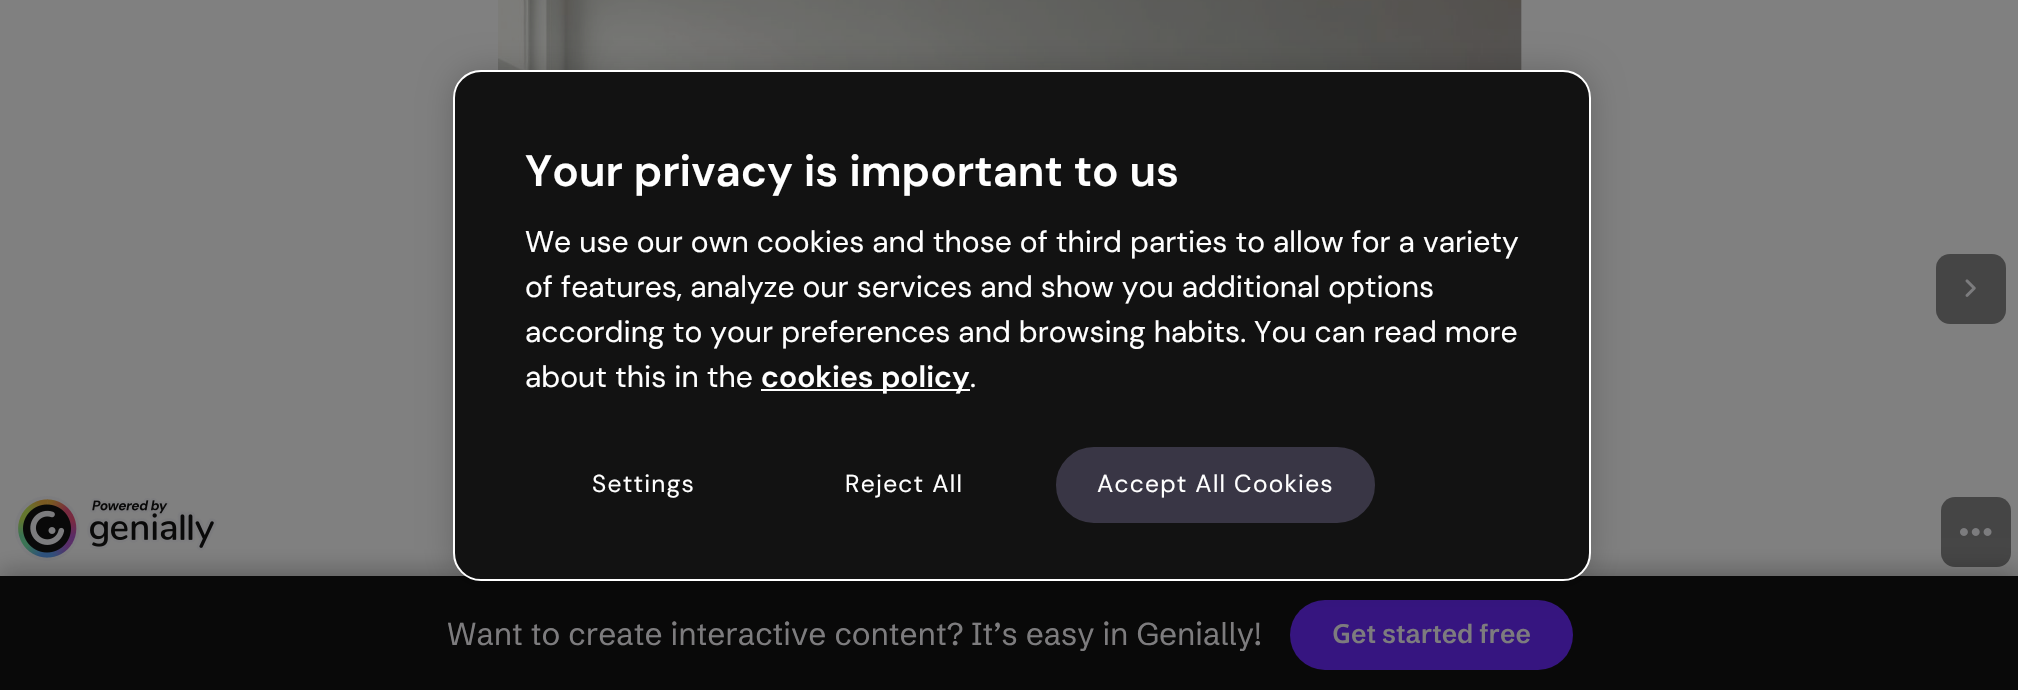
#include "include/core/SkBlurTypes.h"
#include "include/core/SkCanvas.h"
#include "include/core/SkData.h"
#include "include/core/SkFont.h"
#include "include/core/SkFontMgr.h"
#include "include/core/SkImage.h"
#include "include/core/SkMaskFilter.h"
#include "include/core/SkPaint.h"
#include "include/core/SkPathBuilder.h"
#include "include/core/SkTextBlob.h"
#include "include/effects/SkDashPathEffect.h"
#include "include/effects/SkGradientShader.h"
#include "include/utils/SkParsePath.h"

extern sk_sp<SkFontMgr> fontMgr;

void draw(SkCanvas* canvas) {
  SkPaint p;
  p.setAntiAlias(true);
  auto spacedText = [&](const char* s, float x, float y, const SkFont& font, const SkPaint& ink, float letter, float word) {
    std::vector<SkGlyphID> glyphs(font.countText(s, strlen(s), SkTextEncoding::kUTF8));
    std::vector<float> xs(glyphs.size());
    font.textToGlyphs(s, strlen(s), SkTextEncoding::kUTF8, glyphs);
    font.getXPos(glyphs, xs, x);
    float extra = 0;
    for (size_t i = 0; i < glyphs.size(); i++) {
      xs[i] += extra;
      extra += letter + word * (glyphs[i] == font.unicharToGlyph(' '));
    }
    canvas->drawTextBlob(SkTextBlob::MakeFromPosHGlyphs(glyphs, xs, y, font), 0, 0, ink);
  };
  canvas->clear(SkColorSetRGB(128, 128, 128));
  canvas->drawImageRect(SkImages::DeferredFromEncodedData(SkData::MakeFromFileName("images/1.png")), SkRect::MakeLTRB(498, 0, 1522, 70), SkSamplingOptions());
  canvas->drawImageRect(SkImages::DeferredFromEncodedData(SkData::MakeFromFileName("images/2.png")), SkRect::MakeLTRB(15, 496, 217, 561), SkSamplingOptions());
  p.setColor(SkColorSetRGB(69, 69, 69));
  canvas->drawRoundRect(SkRect::MakeLTRB(1941, 497, 2011, 567), 14, 14, p);
  p.setColor(SkColorSetARGB(77, 9, 9, 9));
  p.setMaskFilter(SkMaskFilter::MakeBlur(kNormal_SkBlurStyle, 11.5f));
  canvas->drawRect(SkRect::MakeLTRB(0, 572, 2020, 690), p);
  p.setMaskFilter(nullptr);
  p.setColor(SkColorSetRGB(9, 9, 9));
  canvas->drawRect(SkRect::MakeLTRB(0, 576, 2018, 690), p);
  p.setColor(SkColorSetRGB(54, 21, 128));
  canvas->drawRoundRect(SkRect::MakeLTRB(1290, 600, 1573, 670), 35, 35, p);
  p.setColor(SkColorSetARGB(51, 0, 0, 0));
  p.setMaskFilter(SkMaskFilter::MakeBlur(kNormal_SkBlurStyle, 16));
  canvas->drawRoundRect(SkRect::MakeLTRB(453, 70, 1591, 581), 28, 28, p);
  p.setMaskFilter(nullptr);
  p.setColor(SkColorSetRGB(18, 18, 18));
  canvas->drawRoundRect(SkRect::MakeLTRB(454, 71, 1590, 580), 27, 27, p);
  p.setStyle(SkPaint::kStroke_Style);
  p.setStrokeWidth(2);
  p.setColor(SK_ColorWHITE);
  canvas->drawRoundRect(SkRect::MakeLTRB(454, 71, 1590, 580), 27, 27, p);
  p.setStyle(SkPaint::kFill_Style);
  canvas->drawRect(SkRect::MakeLTRB(761, 389, 970, 391), p);
  p.setColor(SkColorSetRGB(57, 54, 69));
  canvas->drawRoundRect(SkRect::MakeLTRB(1055, 446, 1376, 524), 39, 39, p);
  p.setStyle(SkPaint::kStroke_Style);
  p.setColor(SkColorSetRGB(18, 18, 18));
  canvas->drawRoundRect(SkRect::MakeLTRB(1055, 446, 1376, 524), 39, 39, p);
  p.setStyle(SkPaint::kFill_Style);
  p.setColor(SkColorSetRGB(69, 69, 69));
  canvas->drawRoundRect(SkRect::MakeLTRB(1936, 254, 2006, 324), 14, 14, p);
  canvas->drawImageRect(SkImages::DeferredFromEncodedData(SkData::MakeFromFileName("images/3.png")), SkRect::MakeLTRB(1965, 279, 1976, 297), SkSamplingOptions());
  canvas->drawImageRect(SkImages::DeferredFromEncodedData(SkData::MakeFromFileName("images/4.png")), SkRect::MakeLTRB(1960, 528, 1992, 536), SkSamplingOptions());
  SkFont font1(fontMgr->matchFamilyStyle("DM Sans", SkFontStyle(600, SkFontStyle::kNormal_Width, SkFontStyle::kUpright_Slant)), 44.1f);
  font1.setSubpixel(true);
  p.setColor(SK_ColorWHITE);
  canvas->drawString("Your privacy is important to us", 525, 186, font1, p);
  SkFont font2(fontMgr->matchFamilyStyle("DM Sans", SkFontStyle::Normal()), 30.1f);
  font2.setSubpixel(true);
  canvas->drawString("We use our own cookies and those of third parties to allow for a variety", 525, 252, font2, p);
  canvas->drawString("of features, analyze our services and show you additional options", 525, 297, font2, p);
  canvas->drawString("according to your preferences and browsing habits. You can read more", 525, 342, font2, p);
  canvas->drawString("about this in the", 525, 387, font2, p);
  SkFont font3(fontMgr->matchFamilyStyle("DM Sans", SkFontStyle(600, SkFontStyle::kNormal_Width, SkFontStyle::kUpright_Slant)), 30.1f);
  font3.setSubpixel(true);
  canvas->drawString("cookies policy", 761, 387, font3, p);
  canvas->drawString(".", 970, 387, font2, p);
  SkFont font4(fontMgr->matchFamilyStyle("DM Sans", SkFontStyle::Normal()), 24.5f);
  font4.setSubpixel(true);
  spacedText("Settings", 592, 492, font4, p, 1.25f, 0);
  spacedText("Reject All", 845, 492, font4, p, 1.25f, 0);
  spacedText("Accept All Cookies", 1097, 492, font4, p, 1.25f, 0);
  SkFont font5(fontMgr->matchFamilyStyle("Schibsted Grotesk", SkFontStyle::Normal()), 31.5f);
  font5.setSubpixel(true);
  p.setColor(SkColorSetRGB(125, 124, 126));
  canvas->drawString("Want to create interactive content? It’s easy in Genially!", 447, 645, font5, p);
  SkFont font6(fontMgr->matchFamilyStyle("Noto Sans", SkFontStyle(600, SkFontStyle::kNormal_Width, SkFontStyle::kUpright_Slant)), 26.25f);
  font6.setSubpixel(true);
  canvas->drawString("G", 1332, 643, font6, p);
  SkFont font7(fontMgr->matchFamilyStyle("Schibsted Grotesk", SkFontStyle(600, SkFontStyle::kNormal_Width, SkFontStyle::kUpright_Slant)), 26.25f);
  font7.setSubpixel(true);
  canvas->drawString("et started free", 1351, 643, font7, p);
}
